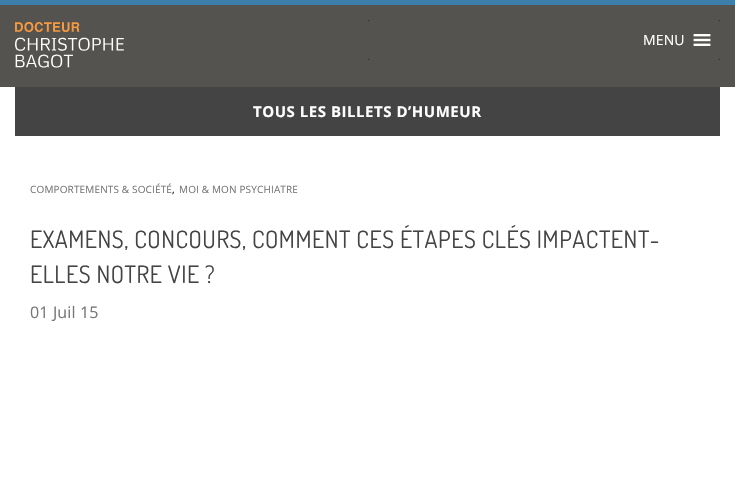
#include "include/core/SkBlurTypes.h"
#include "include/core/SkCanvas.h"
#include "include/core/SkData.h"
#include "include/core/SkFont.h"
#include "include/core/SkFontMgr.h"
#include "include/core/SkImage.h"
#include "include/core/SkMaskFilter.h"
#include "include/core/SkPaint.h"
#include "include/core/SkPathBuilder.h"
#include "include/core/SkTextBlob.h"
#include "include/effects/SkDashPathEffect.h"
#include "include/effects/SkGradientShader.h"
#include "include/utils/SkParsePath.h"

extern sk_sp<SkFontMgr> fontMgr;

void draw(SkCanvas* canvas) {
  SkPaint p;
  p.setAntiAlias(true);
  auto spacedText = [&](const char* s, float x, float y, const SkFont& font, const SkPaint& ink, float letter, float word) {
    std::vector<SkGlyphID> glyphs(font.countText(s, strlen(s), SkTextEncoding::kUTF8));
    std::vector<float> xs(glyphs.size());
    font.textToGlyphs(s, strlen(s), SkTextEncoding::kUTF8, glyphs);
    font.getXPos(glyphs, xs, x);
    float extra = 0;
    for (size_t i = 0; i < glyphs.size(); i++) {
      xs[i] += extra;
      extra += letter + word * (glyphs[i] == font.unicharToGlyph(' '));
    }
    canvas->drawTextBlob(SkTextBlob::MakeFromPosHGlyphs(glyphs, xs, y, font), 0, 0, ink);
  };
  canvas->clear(SK_ColorWHITE);
  p.setColor(SkColorSetRGB(60, 126, 172));
  canvas->drawRect(SkRect::MakeLTRB(0, 0, 735, 5), p);
  p.setColor(SkColorSetRGB(84, 83, 79));
  canvas->drawRect(SkRect::MakeLTRB(0, 5, 735, 87), p);
  canvas->drawImageRect(SkImages::DeferredFromEncodedData(SkData::MakeFromFileName("images/1.png")), SkRect::MakeLTRB(15, 22, 124, 68), SkSamplingOptions());
  p.setColor(SkColorSetRGB(34, 34, 34));
  canvas->drawRect(SkRect::MakeLTRB(368, 20, 720, 60), p);
  p.setColor(SkColorSetRGB(84, 83, 79));
  canvas->drawRoundRect(SkRect::MakeLTRB(368, 20, 720, 60), 2, 2, p);
  canvas->drawImageRect(SkImages::DeferredFromEncodedData(SkData::MakeFromFileName("images/2.png")), SkRect::MakeLTRB(693, 34, 711, 46), SkSamplingOptions());
  p.setColor(SkColorSetRGB(68, 68, 68));
  canvas->drawRect(SkRect::MakeLTRB(15, 87, 720, 136), p);
  SkFont font1(fontMgr->matchFamilyStyle("Open Sans", SkFontStyle::Normal()), 14);
  font1.setSubpixel(true);
  p.setColor(SK_ColorWHITE);
  spacedText("MENU", 643, 45, font1, p, 0.15f, 0);
  SkFont font2(fontMgr->matchFamilyStyle("Open Sans", SkFontStyle::Bold()), 15);
  font2.setSubpixel(true);
  spacedText("TOUS LES BILLETS D’HUMEUR", 253, 117, font2, p, 0.53f, 0);
  SkFont font3(fontMgr->matchFamilyStyle("Open Sans", SkFontStyle::Normal()), 10);
  font3.setSubpixel(true);
  p.setColor(SkColorSetRGB(119, 119, 119));
  spacedText("COMPORTEMENTS & SOCIÉTÉ", 30, 193, font3, p, 0.15f, 0);
  p.setColor(SK_ColorBLACK);
  spacedText(",", 172, 193, font3, p, 0.15f, 0);
  p.setColor(SkColorSetRGB(119, 119, 119));
  spacedText("MOI & MON PSYCHIATRE", 179, 193, font3, p, 0.15f, 0);
  SkFont font4(fontMgr->matchFamilyStyle("Dosis", SkFontStyle::Normal()), 24);
  font4.setSubpixel(true);
  p.setColor(SkColorSetRGB(68, 68, 68));
  spacedText("EXAMENS, CONCOURS, COMMENT CES ÉTAPES CLÉS IMPACTENT-", 30, 248, font4, p, 0.53f, 0);
  spacedText("ELLES NOTRE VIE ?", 30, 283, font4, p, 0.53f, 0);
  SkFont font5(fontMgr->matchFamilyStyle("Open Sans", SkFontStyle::Normal()), 16);
  font5.setSubpixel(true);
  p.setColor(SkColorSetRGB(119, 119, 119));
  spacedText("01 Juil 15", 30, 318, font5, p, 0.15f, 0);
}
